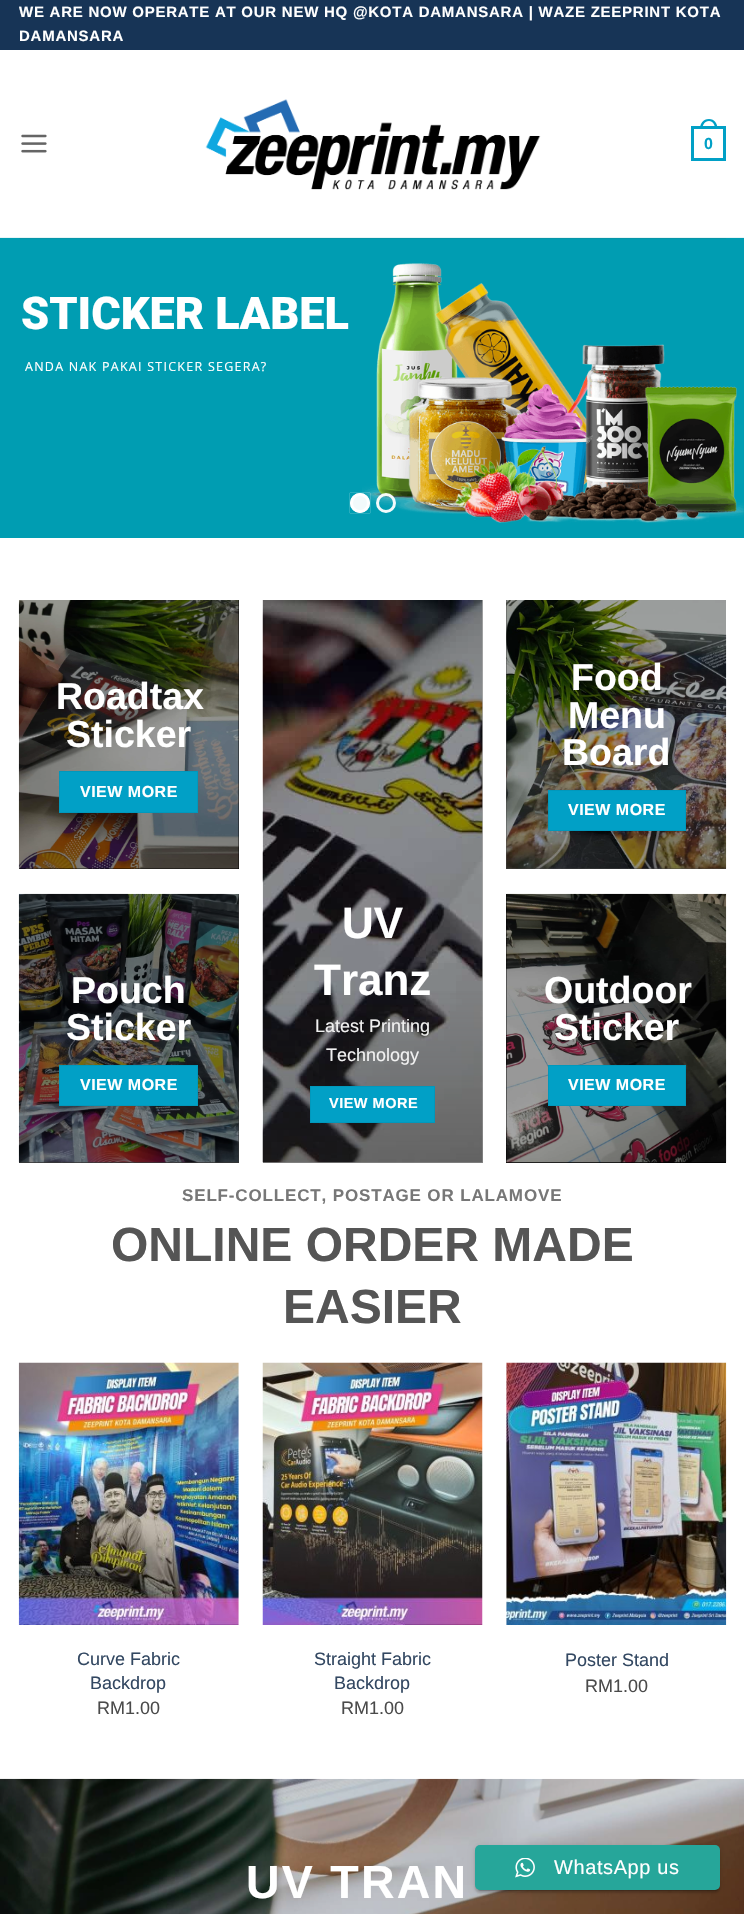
#include "include/core/SkBlurTypes.h"
#include "include/core/SkCanvas.h"
#include "include/core/SkData.h"
#include "include/core/SkFont.h"
#include "include/core/SkFontMgr.h"
#include "include/core/SkImage.h"
#include "include/core/SkMaskFilter.h"
#include "include/core/SkPaint.h"
#include "include/core/SkPathBuilder.h"
#include "include/core/SkTextBlob.h"
#include "include/effects/SkDashPathEffect.h"
#include "include/effects/SkGradientShader.h"
#include "include/utils/SkParsePath.h"

extern sk_sp<SkFontMgr> fontMgr;

void draw(SkCanvas* canvas) {
  SkPaint p;
  p.setAntiAlias(true);
  auto spacedText = [&](const char* s, float x, float y, const SkFont& font, const SkPaint& ink, float letter, float word) {
    std::vector<SkGlyphID> glyphs(font.countText(s, strlen(s), SkTextEncoding::kUTF8));
    std::vector<float> xs(glyphs.size());
    font.textToGlyphs(s, strlen(s), SkTextEncoding::kUTF8, glyphs);
    font.getXPos(glyphs, xs, x);
    float extra = 0;
    for (size_t i = 0; i < glyphs.size(); i++) {
      xs[i] += extra;
      extra += letter + word * (glyphs[i] == font.unicharToGlyph(' '));
    }
    canvas->drawTextBlob(SkTextBlob::MakeFromPosHGlyphs(glyphs, xs, y, font), 0, 0, ink);
  };
  canvas->clear(SK_ColorWHITE);
  p.setColor(SkColorSetRGB(171, 171, 171));
  canvas->drawRect(SkRect::MakeLTRB(263, 600, 483, 1163), p);
  p.setColor(SkColorSetRGB(23, 52, 86));
  canvas->drawRect(SkRect::MakeLTRB(0, 0, 744, 50), p);
  canvas->drawImageRect(SkImages::DeferredFromEncodedData(SkData::MakeFromFileName("images/1.png")), SkRect::MakeLTRB(21, 134, 47, 153), SkSamplingOptions());
  canvas->drawImageRect(SkImages::DeferredFromEncodedData(SkData::MakeFromFileName("images/2.png")), SkRect::MakeLTRB(205, 99, 541, 190), SkSamplingOptions());
  p.setStyle(SkPaint::kStroke_Style);
  p.setStrokeWidth(3);
  p.setColor(SkColorSetRGB(1, 160, 198));
  canvas->drawRect(SkRect::MakeLTRB(692.5f, 127.5f, 724.5f, 159.5f), p);
  p.setStyle(SkPaint::kFill_Style);
  canvas->drawPath(SkPathBuilder(SkPathFillType::kEvenOdd).moveTo(709, 119).cubicTo(714.5f, 119, 717.5f, 123.5f, 717.5f, 129).lineTo(700, 129).cubicTo(700, 123.5f, 703, 119, 709, 119).close().moveTo(709, 121).cubicTo(713, 121, 715, 125, 715, 129).lineTo(702.5f, 129).cubicTo(702.5f, 125, 704.5f, 121, 709, 121).close().detach(), p);
  p.setColor(SkColorSetRGB(0, 157, 178));
  canvas->drawRect(SkRect::MakeLTRB(0, 238, 744, 538), p);
  p.setColor(SkColorSetRGB(7, 149, 168));
  canvas->drawRect(SkRect::MakeLTRB(19, 238, 726, 239), p);
  p.setColor(SkColorSetRGB(230, 245, 247));
  canvas->drawRect(SkRect::MakeLTRB(0, 237, 744, 238), p);
  canvas->drawImageRect(SkImages::DeferredFromEncodedData(SkData::MakeFromFileName("images/3.png")), SkRect::MakeLTRB(362, 263, 744, 523), SkSamplingOptions());
  p.setStyle(SkPaint::kStroke_Style);
  p.setColor(SkColorSetARGB(242, 255, 255, 255));
  canvas->drawCircle(360, 503, 8.5f, p);
  canvas->save();
  canvas->clipPath(SkPathBuilder(SkPathFillType::kEvenOdd).moveTo(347, 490).lineTo(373, 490).lineTo(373, 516).lineTo(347, 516).close().moveTo(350, 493).lineTo(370, 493).lineTo(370, 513).lineTo(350, 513).close().detach(), true);
  p.setStyle(SkPaint::kFill_Style);
  p.setColor(SkColorSetRGB(242, 250, 251));
  p.setMaskFilter(SkMaskFilter::MakeBlur(kNormal_SkBlurStyle, 0.5f));
  canvas->drawRect(SkRect::MakeLTRB(350, 493, 370, 513), p);
  p.setMaskFilter(nullptr);
  canvas->restore();
  p.setColor(SkColorSetARGB(242, 255, 255, 255));
  canvas->drawCircle(360, 503, 10, p);
  p.setStyle(SkPaint::kStroke_Style);
  canvas->drawCircle(386, 503, 8.5f, p);
  p.setStyle(SkPaint::kFill_Style);
  p.setColor(SK_ColorBLACK);
  canvas->drawRect(SkRect::MakeLTRB(19, 600, 239, 869), p);
  canvas->drawImageRect(SkImages::DeferredFromEncodedData(SkData::MakeFromFileName("images/4.png")), SkRect::MakeLTRB(18, 600, 239, 869), SkSamplingOptions());
  p.setColor(SkColorSetRGB(1, 160, 198));
  canvas->drawRect(SkRect::MakeLTRB(59.5f, 771.5f, 197.5f, 812.5f), p);
  p.setStyle(SkPaint::kStroke_Style);
  p.setStrokeWidth(1);
  p.setColor(SkColorSetRGB(1, 152, 188));
  canvas->drawRect(SkRect::MakeLTRB(59.5f, 771.5f, 197.5f, 812.5f), p);
  p.setStyle(SkPaint::kFill_Style);
  p.setColor(SkColorSetRGB(53, 53, 53));
  canvas->drawRect(SkRect::MakeLTRB(19, 894, 239, 1163), p);
  canvas->drawImageRect(SkImages::DeferredFromEncodedData(SkData::MakeFromFileName("images/5.png")), SkRect::MakeLTRB(18, 893, 239, 1163), SkSamplingOptions());
  p.setColor(SkColorSetRGB(1, 160, 198));
  canvas->drawRect(SkRect::MakeLTRB(59.5f, 1065.5f, 197.5f, 1105.5f), p);
  p.setStyle(SkPaint::kStroke_Style);
  p.setColor(SkColorSetRGB(1, 152, 188));
  canvas->drawRect(SkRect::MakeLTRB(59.5f, 1065.5f, 197.5f, 1105.5f), p);
  canvas->drawImageRect(SkImages::DeferredFromEncodedData(SkData::MakeFromFileName("images/6.png")), SkRect::MakeLTRB(262, 600, 483, 1163), SkSamplingOptions());
  p.setStyle(SkPaint::kFill_Style);
  {
    const SkColor colors[] = {SkColorSetARGB(77, 50, 50, 50), SkColorSetARGB(0, 50, 50, 50)};
    const float stops[] = {0, 0.33f};
    const SkPoint ends[] = {{373, 1163}, {373, 600}};
    p.setShader(SkGradientShader::MakeLinear(ends, colors, stops, 2, SkTileMode::kClamp));
    p.setAlpha(255);
  }
  canvas->drawRect(SkRect::MakeLTRB(263, 991, 483, 1163), p);
  p.setShader(nullptr);
  p.setColor(SkColorSetRGB(1, 160, 198));
  canvas->drawRect(SkRect::MakeLTRB(310.5f, 1086.5f, 434.5f, 1122.5f), p);
  p.setStyle(SkPaint::kStroke_Style);
  p.setColor(SkColorSetRGB(1, 152, 188));
  canvas->drawRect(SkRect::MakeLTRB(310.5f, 1086.5f, 434.5f, 1122.5f), p);
  p.setStyle(SkPaint::kFill_Style);
  p.setColor(SkColorSetRGB(65, 65, 65));
  canvas->drawRect(SkRect::MakeLTRB(506, 600, 726, 869), p);
  canvas->drawImageRect(SkImages::DeferredFromEncodedData(SkData::MakeFromFileName("images/7.png")), SkRect::MakeLTRB(506, 600, 727, 869), SkSamplingOptions());
  p.setColor(SkColorSetRGB(1, 160, 198));
  canvas->drawRect(SkRect::MakeLTRB(548.5f, 790.5f, 685.5f, 830.5f), p);
  p.setStyle(SkPaint::kStroke_Style);
  p.setColor(SkColorSetRGB(1, 152, 188));
  canvas->drawRect(SkRect::MakeLTRB(548.5f, 790.5f, 685.5f, 830.5f), p);
  p.setStyle(SkPaint::kFill_Style);
  p.setColor(SK_ColorBLACK);
  canvas->drawRect(SkRect::MakeLTRB(506, 894, 726, 1163), p);
  canvas->drawImageRect(SkImages::DeferredFromEncodedData(SkData::MakeFromFileName("images/8.png")), SkRect::MakeLTRB(506, 893, 727, 1163), SkSamplingOptions());
  p.setColor(SkColorSetRGB(1, 160, 198));
  canvas->drawRect(SkRect::MakeLTRB(548.5f, 1065.5f, 685.5f, 1105.5f), p);
  p.setStyle(SkPaint::kStroke_Style);
  p.setColor(SkColorSetRGB(1, 152, 188));
  canvas->drawRect(SkRect::MakeLTRB(548.5f, 1065.5f, 685.5f, 1105.5f), p);
  canvas->drawImageRect(SkImages::DeferredFromEncodedData(SkData::MakeFromFileName("images/9.png")), SkRect::MakeLTRB(18, 1362, 239, 1625), SkSamplingOptions());
  canvas->drawImageRect(SkImages::DeferredFromEncodedData(SkData::MakeFromFileName("images/10.png")), SkRect::MakeLTRB(262, 1362, 483, 1625), SkSamplingOptions());
  canvas->drawImageRect(SkImages::DeferredFromEncodedData(SkData::MakeFromFileName("images/11.png")), SkRect::MakeLTRB(506, 1362, 727, 1625), SkSamplingOptions());
  canvas->drawImageRect(SkImages::DeferredFromEncodedData(SkData::MakeFromFileName("images/12.png")), SkRect::MakeLTRB(0, 1778, 744, 1914), SkSamplingOptions());
  p.setStyle(SkPaint::kFill_Style);
  p.setColor(SkColorSetARGB(51, 0, 0, 0));
  p.setMaskFilter(SkMaskFilter::MakeBlur(kNormal_SkBlurStyle, 0.5f));
  canvas->drawRoundRect(SkRect::MakeLTRB(478, 1851, 718, 1891), 2.5f, 2.5f, p);
  p.setMaskFilter(nullptr);
  p.setColor(SkColorSetARGB(31, 0, 0, 0));
  p.setMaskFilter(SkMaskFilter::MakeBlur(kNormal_SkBlurStyle, 3));
  canvas->drawRoundRect(SkRect::MakeLTRB(475, 1846, 720, 1891), 5, 5, p);
  p.setMaskFilter(nullptr);
  p.setColor(SkColorSetARGB(36, 0, 0, 0));
  p.setMaskFilter(SkMaskFilter::MakeBlur(kNormal_SkBlurStyle, 1));
  canvas->drawRoundRect(SkRect::MakeLTRB(475, 1848, 720, 1893), 5, 5, p);
  p.setMaskFilter(nullptr);
  p.setColor(SkColorSetRGB(38, 166, 154));
  canvas->drawRoundRect(SkRect::MakeLTRB(475, 1845, 720, 1890), 5, 5, p);
  canvas->drawImageRect(SkImages::DeferredFromEncodedData(SkData::MakeFromFileName("images/13.png")), SkRect::MakeLTRB(515, 1858, 535, 1878), SkSamplingOptions());
  SkFont font1(fontMgr->matchFamilyStyle("Liberation Sans", SkFontStyle::Bold()), 15);
  font1.setSubpixel(true);
  p.setColor(SK_ColorWHITE);
  spacedText("WE ARE NOW OPERATE AT OUR NEW HQ @KOTA DAMANSARA | WAZE ZEEPRINT KOTA", 19, 17, font1, p, 0.75f, 0);
  spacedText("DAMANSARA", 19, 41, font1, p, 0.75f, 0);
  SkFont font2(fontMgr->matchFamilyStyle("Liberation Sans", SkFontStyle::Bold()), 16);
  font2.setSubpixel(true);
  p.setColor(SkColorSetRGB(1, 160, 198));
  canvas->drawString("0", 704, 149, font2, p);
  SkFont font3(fontMgr->matchFamilyStyle("Roboto", SkFontStyle(900, SkFontStyle::kNormal_Width, SkFontStyle::kUpright_Slant)), 45);
  font3.setSubpixel(true);
  p.setColor(SK_ColorWHITE);
  canvas->drawString("STICKER LABEL", 21, 329, font3, p);
  SkFont font4(fontMgr->matchFamilyStyle("Open Sans", SkFontStyle::Normal()), 12.5f);
  font4.setSubpixel(true);
  spacedText("ANDA NAK PAKAI STICKER SEGERA?", 25, 371, font4, p, 1.25f, 0);
  SkFont font5(fontMgr->matchFamilyStyle("Liberation Sans", SkFontStyle::Bold()), 37.5f);
  font5.setSubpixel(true);
  canvas->drawString("Roadtax", 56, 709, font5, p);
  canvas->drawString("Sticker", 66, 747, font5, p);
  spacedText("VIEW MORE", 80, 797, font2, p, 0.5f, 0);
  canvas->drawString("Pouch", 71, 1003, font5, p);
  canvas->drawString("Sticker", 66, 1040, font5, p);
  spacedText("VIEW MORE", 80, 1090, font2, p, 0.5f, 0);
  SkFont font6(fontMgr->matchFamilyStyle("Liberation Sans", SkFontStyle::Bold()), 44);
  font6.setSubpixel(true);
  canvas->drawString("UV", 342, 938, font6, p);
  canvas->drawString("Tranz", 314, 995, font6, p);
  SkFont font7(fontMgr->matchFamilyStyle("Liberation Sans", SkFontStyle::Normal()), 18);
  font7.setSubpixel(true);
  p.setColor(SkColorSetRGB(241, 241, 241));
  canvas->drawString("Latest Printing", 315, 1032, font7, p);
  canvas->drawString("Technology", 326, 1061, font7, p);
  SkFont font8(fontMgr->matchFamilyStyle("Liberation Sans", SkFontStyle::Bold()), 14.5f);
  font8.setSubpixel(true);
  p.setColor(SK_ColorWHITE);
  spacedText("VIEW MORE", 329, 1108, font8, p, 0.5f, 0);
  canvas->drawString("Food", 571, 690, font5, p);
  canvas->drawString("Menu", 568, 728, font5, p);
  canvas->drawString("Board", 562, 765, font5, p);
  spacedText("VIEW MORE", 568, 815, font2, p, 0.5f, 0);
  canvas->drawString("Outdoor", 544, 1003, font5, p);
  canvas->drawString("Sticker", 554, 1040, font5, p);
  spacedText("VIEW MORE", 568, 1090, font2, p, 0.5f, 0);
  SkFont font9(fontMgr->matchFamilyStyle("Liberation Sans", SkFontStyle::Bold()), 17);
  font9.setSubpixel(true);
  p.setColor(SkColorSetRGB(119, 119, 119));
  spacedText("SELF-COLLECT, POSTAGE OR LALAMOVE", 182, 1201, font9, p, 0.85f, 0);
  SkFont font10(fontMgr->matchFamilyStyle("Liberation Sans", SkFontStyle::Bold()), 48);
  font10.setSubpixel(true);
  p.setColor(SkColorSetRGB(85, 85, 85));
  canvas->drawString("ONLINE ORDER MADE", 111, 1261, font10, p);
  canvas->drawString("EASIER", 283, 1323, font10, p);
  p.setColor(SkColorSetRGB(51, 72, 98));
  canvas->drawString("Curve Fabric", 77, 1665, font7, p);
  canvas->drawString("Backdrop", 90, 1689, font7, p);
  p.setColor(SkColorSetRGB(74, 74, 74));
  canvas->drawString("RM1.00", 97, 1714, font7, p);
  p.setColor(SkColorSetRGB(51, 72, 98));
  canvas->drawString("Straight Fabric", 314, 1665, font7, p);
  canvas->drawString("Backdrop", 334, 1689, font7, p);
  p.setColor(SkColorSetRGB(74, 74, 74));
  canvas->drawString("RM1.00", 341, 1714, font7, p);
  p.setColor(SkColorSetRGB(51, 72, 98));
  canvas->drawString("Poster Stand", 565, 1666, font7, p);
  p.setColor(SkColorSetRGB(74, 74, 74));
  canvas->drawString("RM1.00", 585, 1692, font7, p);
  SkFont font11(fontMgr->matchFamilyStyle("Liberation Sans", SkFontStyle::Bold()), 46.5f);
  font11.setSubpixel(true);
  p.setColor(SK_ColorWHITE);
  spacedText("UV TRAN", 246, 1898, font11, p, 2.25f, 0);
  SkFont font12(fontMgr->matchFamilyStyle("Liberation Sans", SkFontStyle::Normal()), 20);
  font12.setSubpixel(true);
  spacedText("WhatsApp us", 554, 1874, font12, p, 0.6f, 0);
}
